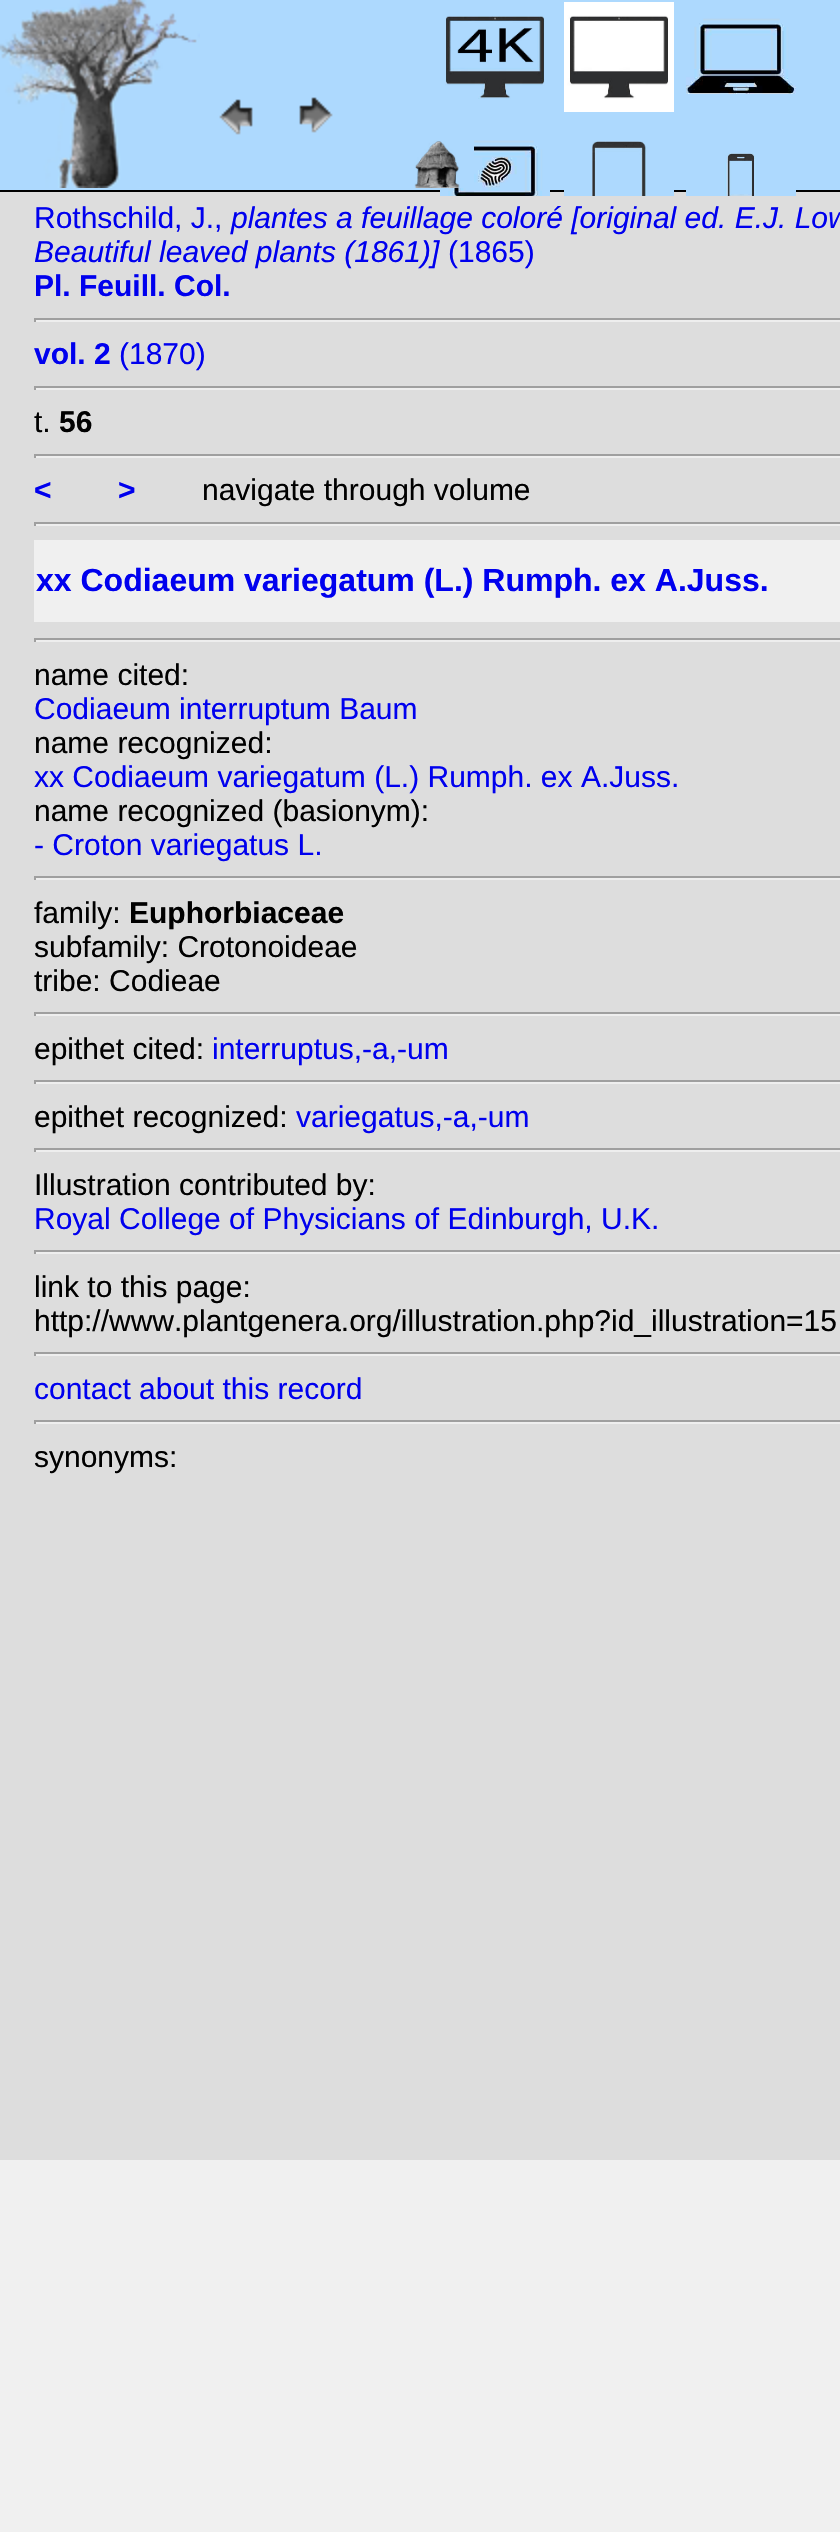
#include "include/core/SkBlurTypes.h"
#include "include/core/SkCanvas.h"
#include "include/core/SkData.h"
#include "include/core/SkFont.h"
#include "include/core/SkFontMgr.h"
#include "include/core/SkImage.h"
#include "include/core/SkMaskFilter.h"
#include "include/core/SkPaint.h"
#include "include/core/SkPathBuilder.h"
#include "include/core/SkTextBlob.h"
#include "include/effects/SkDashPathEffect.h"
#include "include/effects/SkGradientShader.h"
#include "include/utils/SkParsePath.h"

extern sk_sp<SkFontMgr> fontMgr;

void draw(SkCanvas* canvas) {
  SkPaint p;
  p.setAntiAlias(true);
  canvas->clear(SkColorSetRGB(240, 240, 240));
  p.setColor(SkColorSetRGB(221, 221, 221));
  canvas->drawRect(SkRect::MakeLTRB(0, 192, 840, 2160), p);
  p.setColor(SkColorSetRGB(173, 217, 254));
  canvas->drawRect(SkRect::MakeLTRB(0, 0, 840, 190), p);
  p.setColor(SK_ColorBLACK);
  canvas->drawRect(SkRect::MakeLTRB(0, 190, 840, 192), p);
  canvas->drawImageRect(SkImages::DeferredFromEncodedData(SkData::MakeFromFileName("images/1.png")), SkRect::MakeLTRB(0, 0, 200, 188), SkSamplingOptions());
  canvas->drawImageRect(SkImages::DeferredFromEncodedData(SkData::MakeFromFileName("images/2.png")), SkRect::MakeLTRB(219, 99, 253, 135), SkSamplingOptions());
  canvas->drawImageRect(SkImages::DeferredFromEncodedData(SkData::MakeFromFileName("images/3.png")), SkRect::MakeLTRB(299, 97, 333, 133), SkSamplingOptions());
  canvas->drawImageRect(SkImages::DeferredFromEncodedData(SkData::MakeFromFileName("images/4.png")), SkRect::MakeLTRB(445, 16, 545, 99), SkSamplingOptions());
  canvas->drawImageRect(SkImages::DeferredFromEncodedData(SkData::MakeFromFileName("images/5.png")), SkRect::MakeLTRB(564, 2, 674, 112), SkSamplingOptions());
  canvas->drawImageRect(SkImages::DeferredFromEncodedData(SkData::MakeFromFileName("images/6.png")), SkRect::MakeLTRB(686, 18, 796, 94), SkSamplingOptions());
  canvas->drawImageRect(SkImages::DeferredFromEncodedData(SkData::MakeFromFileName("images/7.png")), SkRect::MakeLTRB(440, 140, 550, 196), SkSamplingOptions());
  canvas->drawImageRect(SkImages::DeferredFromEncodedData(SkData::MakeFromFileName("images/8.png")), SkRect::MakeLTRB(564, 141, 674, 196), SkSamplingOptions());
  canvas->drawImageRect(SkImages::DeferredFromEncodedData(SkData::MakeFromFileName("images/9.png")), SkRect::MakeLTRB(686, 153, 796, 196), SkSamplingOptions());
  canvas->drawImageRect(SkImages::DeferredFromEncodedData(SkData::MakeFromFileName("images/10.png")), SkRect::MakeLTRB(414, 140, 474, 188), SkSamplingOptions());
  p.setColor(SkColorSetRGB(159, 159, 159));
  canvas->drawRect(SkRect::MakeLTRB(34, 318, 840, 320), p);
  p.setColor(SkColorSetRGB(238, 238, 238));
  canvas->drawRect(SkRect::MakeLTRB(34, 320, 840, 322), p);
  p.setColor(SkColorSetRGB(159, 159, 159));
  canvas->drawRect(SkRect::MakeLTRB(34, 318, 36, 322), p);
  canvas->drawRect(SkRect::MakeLTRB(34, 386, 840, 388), p);
  p.setColor(SkColorSetRGB(238, 238, 238));
  canvas->drawRect(SkRect::MakeLTRB(34, 388, 840, 390), p);
  p.setColor(SkColorSetRGB(159, 159, 159));
  canvas->drawRect(SkRect::MakeLTRB(34, 386, 36, 390), p);
  canvas->drawRect(SkRect::MakeLTRB(34, 454, 840, 456), p);
  p.setColor(SkColorSetRGB(238, 238, 238));
  canvas->drawRect(SkRect::MakeLTRB(34, 456, 840, 458), p);
  p.setColor(SkColorSetRGB(159, 159, 159));
  canvas->drawRect(SkRect::MakeLTRB(34, 454, 36, 458), p);
  canvas->drawRect(SkRect::MakeLTRB(34, 522, 840, 524), p);
  p.setColor(SkColorSetRGB(238, 238, 238));
  canvas->drawRect(SkRect::MakeLTRB(34, 524, 840, 526), p);
  p.setColor(SkColorSetRGB(159, 159, 159));
  canvas->drawRect(SkRect::MakeLTRB(34, 522, 36, 526), p);
  p.setColor(SkColorSetRGB(240, 240, 240));
  canvas->drawRect(SkRect::MakeLTRB(34, 540, 840, 622), p);
  p.setColor(SkColorSetRGB(159, 159, 159));
  canvas->drawRect(SkRect::MakeLTRB(34, 638, 840, 640), p);
  p.setColor(SkColorSetRGB(238, 238, 238));
  canvas->drawRect(SkRect::MakeLTRB(34, 640, 840, 642), p);
  p.setColor(SkColorSetRGB(159, 159, 159));
  canvas->drawRect(SkRect::MakeLTRB(34, 638, 36, 642), p);
  canvas->drawRect(SkRect::MakeLTRB(34, 876, 840, 878), p);
  p.setColor(SkColorSetRGB(238, 238, 238));
  canvas->drawRect(SkRect::MakeLTRB(34, 878, 840, 880), p);
  p.setColor(SkColorSetRGB(159, 159, 159));
  canvas->drawRect(SkRect::MakeLTRB(34, 876, 36, 880), p);
  canvas->drawRect(SkRect::MakeLTRB(34, 1012, 840, 1014), p);
  p.setColor(SkColorSetRGB(238, 238, 238));
  canvas->drawRect(SkRect::MakeLTRB(34, 1014, 840, 1016), p);
  p.setColor(SkColorSetRGB(159, 159, 159));
  canvas->drawRect(SkRect::MakeLTRB(34, 1012, 36, 1016), p);
  canvas->drawRect(SkRect::MakeLTRB(34, 1080, 840, 1082), p);
  p.setColor(SkColorSetRGB(238, 238, 238));
  canvas->drawRect(SkRect::MakeLTRB(34, 1082, 840, 1084), p);
  p.setColor(SkColorSetRGB(159, 159, 159));
  canvas->drawRect(SkRect::MakeLTRB(34, 1080, 36, 1084), p);
  canvas->drawRect(SkRect::MakeLTRB(34, 1148, 840, 1150), p);
  p.setColor(SkColorSetRGB(238, 238, 238));
  canvas->drawRect(SkRect::MakeLTRB(34, 1150, 840, 1152), p);
  p.setColor(SkColorSetRGB(159, 159, 159));
  canvas->drawRect(SkRect::MakeLTRB(34, 1148, 36, 1152), p);
  canvas->drawRect(SkRect::MakeLTRB(34, 1250, 840, 1252), p);
  p.setColor(SkColorSetRGB(238, 238, 238));
  canvas->drawRect(SkRect::MakeLTRB(34, 1252, 840, 1254), p);
  p.setColor(SkColorSetRGB(159, 159, 159));
  canvas->drawRect(SkRect::MakeLTRB(34, 1250, 36, 1254), p);
  canvas->drawRect(SkRect::MakeLTRB(34, 1352, 840, 1354), p);
  p.setColor(SkColorSetRGB(238, 238, 238));
  canvas->drawRect(SkRect::MakeLTRB(34, 1354, 840, 1356), p);
  p.setColor(SkColorSetRGB(159, 159, 159));
  canvas->drawRect(SkRect::MakeLTRB(34, 1352, 36, 1356), p);
  canvas->drawRect(SkRect::MakeLTRB(34, 1420, 840, 1422), p);
  p.setColor(SkColorSetRGB(238, 238, 238));
  canvas->drawRect(SkRect::MakeLTRB(34, 1422, 840, 1424), p);
  p.setColor(SkColorSetRGB(159, 159, 159));
  canvas->drawRect(SkRect::MakeLTRB(34, 1420, 36, 1424), p);
  SkFont font1(fontMgr->matchFamilyStyle("Liberation Sans", SkFontStyle::Normal()), 30);
  font1.setSubpixel(true);
  p.setColor(SkColorSetRGB(0, 0, 238));
  canvas->drawString("Rothschild, J.,", 34, 228, font1, p);
  SkFont font2(fontMgr->matchFamilyStyle("Liberation Sans", SkFontStyle::Italic()), 30);
  font2.setSubpixel(true);
  canvas->drawString("plantes a feuillage coloré [original ed. E.J. Low", 231, 228, font2, p);
  canvas->drawString("Beautiful leaved plants (1861)]", 34, 262, font2, p);
  canvas->drawString("(1865)", 448, 262, font1, p);
  SkFont font3(fontMgr->matchFamilyStyle("Liberation Sans", SkFontStyle::Bold()), 30);
  font3.setSubpixel(true);
  canvas->drawString("Pl. Feuill. Col.", 34, 296, font3, p);
  canvas->drawString("vol. 2", 34, 364, font3, p);
  canvas->drawString("(1870)", 119, 364, font1, p);
  p.setColor(SK_ColorBLACK);
  canvas->drawString("t.", 34, 432, font1, p);
  canvas->drawString("56", 59, 432, font3, p);
  p.setColor(SkColorSetRGB(0, 0, 238));
  canvas->drawString("<", 34, 500, font3, p);
  canvas->drawString(">", 118, 500, font3, p);
  p.setColor(SK_ColorBLACK);
  canvas->drawString("navigate through volume", 202, 500, font1, p);
  SkFont font4(fontMgr->matchFamilyStyle("Liberation Sans", SkFontStyle::Bold()), 32);
  font4.setSubpixel(true);
  p.setColor(SkColorSetRGB(0, 0, 238));
  canvas->drawString("xx Codiaeum variegatum (L.) Rumph. ex A.Juss.", 36, 591, font4, p);
  p.setColor(SK_ColorBLACK);
  canvas->drawString("name cited:", 34, 685, font1, p);
  p.setColor(SkColorSetRGB(0, 0, 238));
  canvas->drawString("Codiaeum interruptum Baum", 34, 719, font1, p);
  p.setColor(SK_ColorBLACK);
  canvas->drawString("name recognized:", 34, 753, font1, p);
  p.setColor(SkColorSetRGB(0, 0, 238));
  canvas->drawString("xx Codiaeum variegatum (L.) Rumph. ex A.Juss.", 34, 787, font1, p);
  p.setColor(SK_ColorBLACK);
  canvas->drawString("name recognized (basionym):", 34, 821, font1, p);
  p.setColor(SkColorSetRGB(0, 0, 238));
  canvas->drawString("- Croton variegatus L.", 34, 855, font1, p);
  p.setColor(SK_ColorBLACK);
  canvas->drawString("family:", 34, 923, font1, p);
  canvas->drawString("Euphorbiaceae", 129, 923, font3, p);
  canvas->drawString("subfamily: Crotonoideae", 34, 957, font1, p);
  canvas->drawString("tribe: Codieae", 34, 991, font1, p);
  canvas->drawString("epithet cited:", 34, 1059, font1, p);
  p.setColor(SkColorSetRGB(0, 0, 238));
  canvas->drawString("interruptus,-a,-um", 212, 1059, font1, p);
  p.setColor(SK_ColorBLACK);
  canvas->drawString("epithet recognized:", 34, 1127, font1, p);
  p.setColor(SkColorSetRGB(0, 0, 238));
  canvas->drawString("variegatus,-a,-um", 296, 1127, font1, p);
  p.setColor(SK_ColorBLACK);
  canvas->drawString("Illustration contributed by:", 34, 1195, font1, p);
  p.setColor(SkColorSetRGB(0, 0, 238));
  canvas->drawString("Royal College of Physicians of Edinburgh, U.K.", 34, 1229, font1, p);
  p.setColor(SK_ColorBLACK);
  canvas->drawString("link to this page:", 34, 1297, font1, p);
  canvas->drawString("http://www.plantgenera.org/illustration.php?id_illustration=15", 34, 1331, font1, p);
  p.setColor(SkColorSetRGB(0, 0, 238));
  canvas->drawString("contact about this record", 34, 1399, font1, p);
  p.setColor(SK_ColorBLACK);
  canvas->drawString("synonyms:", 34, 1467, font1, p);
}
